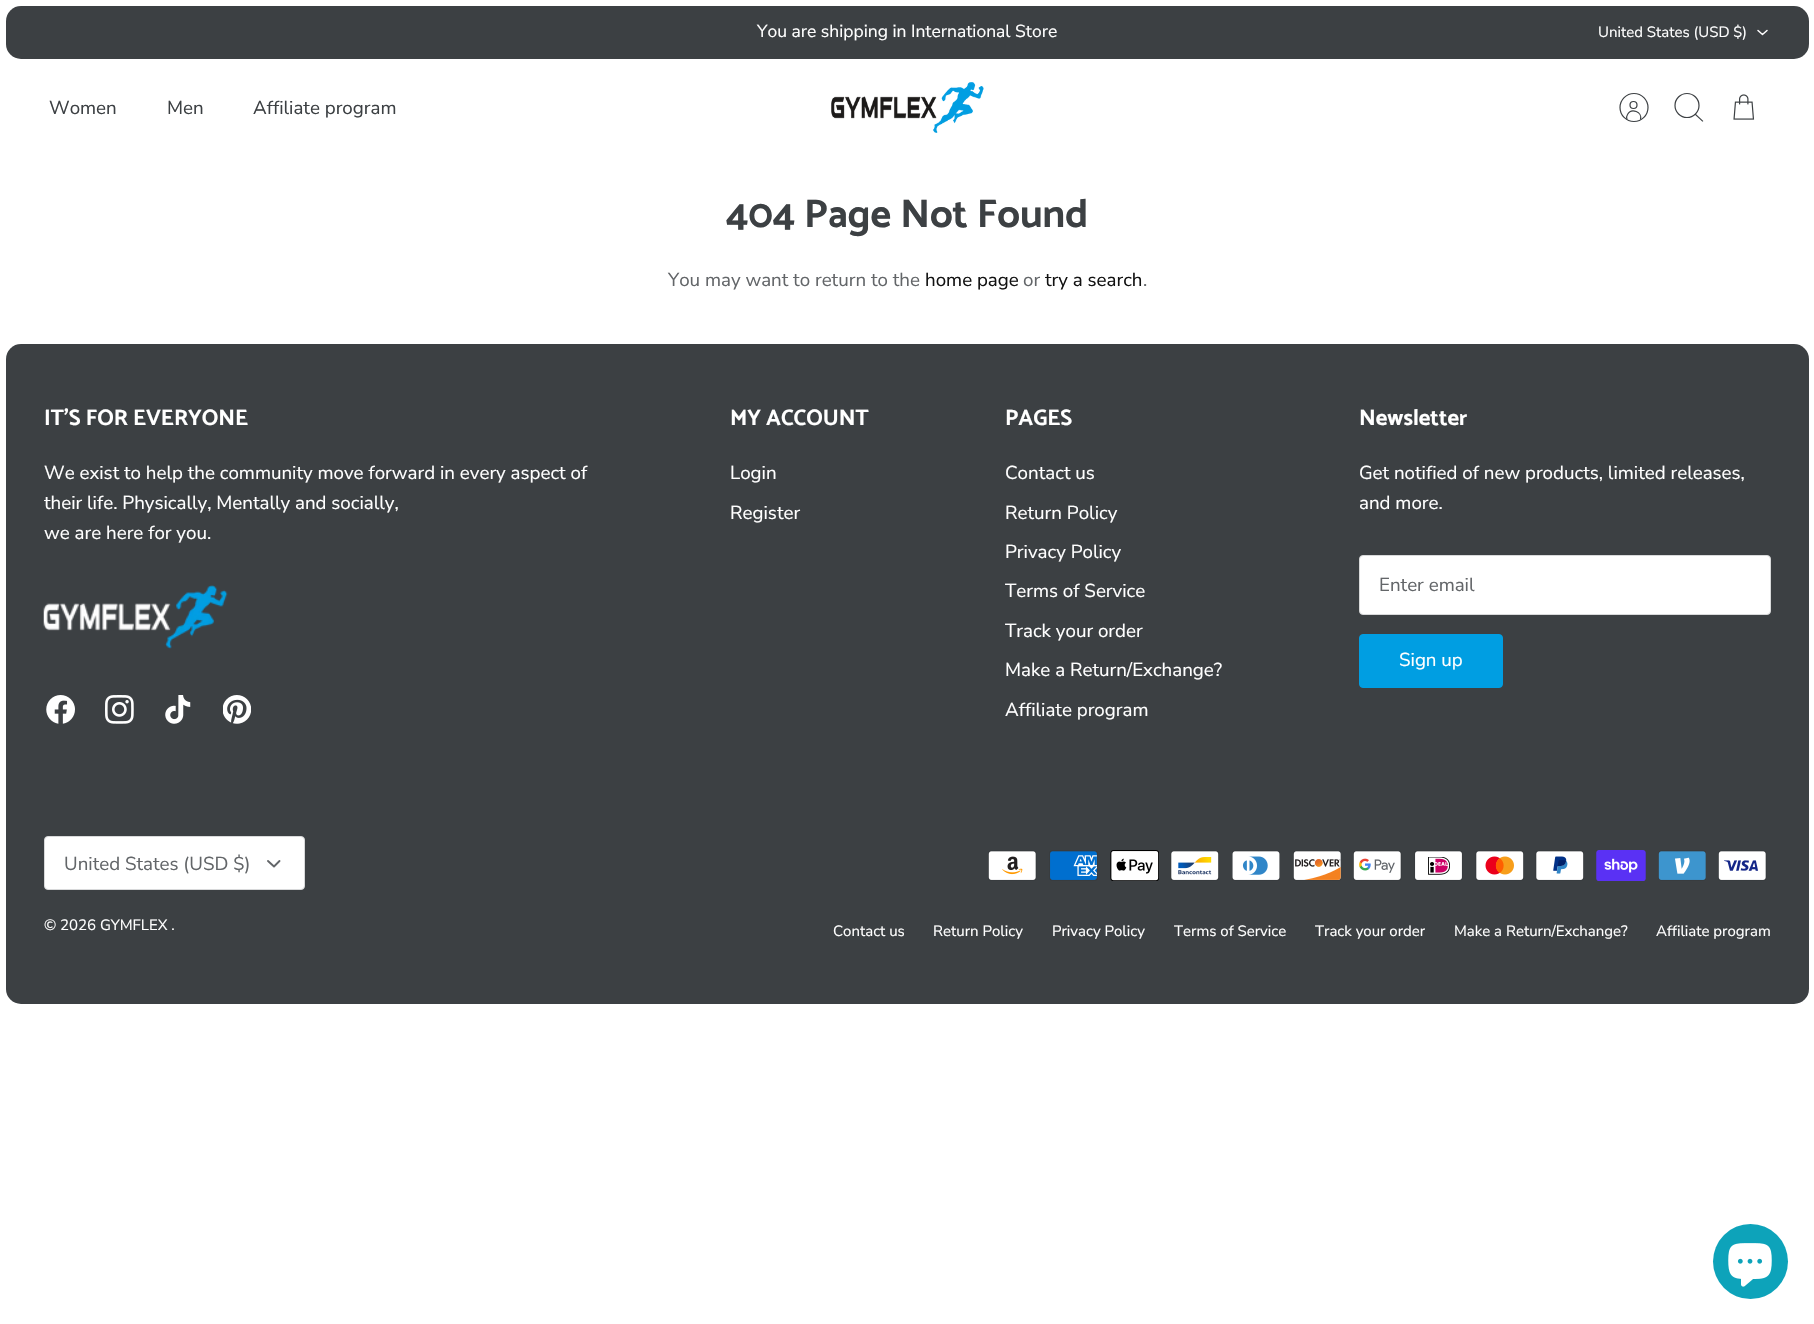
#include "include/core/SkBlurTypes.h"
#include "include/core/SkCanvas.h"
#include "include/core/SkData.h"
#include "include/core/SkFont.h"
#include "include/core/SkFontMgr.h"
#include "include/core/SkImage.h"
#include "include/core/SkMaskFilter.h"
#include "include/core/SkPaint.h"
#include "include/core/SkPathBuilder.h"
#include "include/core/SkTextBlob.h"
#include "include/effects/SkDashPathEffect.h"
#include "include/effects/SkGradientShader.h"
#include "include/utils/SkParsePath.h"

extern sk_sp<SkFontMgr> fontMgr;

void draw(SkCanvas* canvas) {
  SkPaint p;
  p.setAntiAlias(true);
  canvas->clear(SK_ColorWHITE);
  p.setColor(SkColorSetRGB(60, 64, 67));
  canvas->drawRoundRect(SkRect::MakeLTRB(6, 6, 1809, 59), 15, 15, p);
  p.setStyle(SkPaint::kStroke_Style);
  p.setStrokeWidth(1.5f);
  p.setStrokeCap(SkPaint::kRound_Cap);
  p.setStrokeJoin(SkPaint::kRound_Join);
  p.setColor(SK_ColorWHITE);
  canvas->drawPath(SkPathBuilder().moveTo(1758, 30.5f).lineTo(1762.5f, 34.5f).lineTo(1767, 30.5f).detach(), p);
  canvas->drawImageRect(SkImages::DeferredFromEncodedData(SkData::MakeFromFileName("images/1.png")), SkRect::MakeLTRB(831, 82, 984, 133), SkSamplingOptions());
  p.setStrokeWidth(1.2f);
  p.setStrokeCap(SkPaint::kButt_Cap);
  p.setStrokeJoin(SkPaint::kMiter_Join);
  p.setColor(SkColorSetRGB(60, 64, 67));
  canvas->drawPath(SkPathBuilder().moveTo(1640.5f, 119.5f).cubicTo(1642.5f, 112, 1631.5f, 107.5f, 1627.5f, 114.5f).cubicTo(1626.5f, 116, 1626.5f, 118, 1627, 119.5f).detach(), p);
  canvas->drawCircle(1633.5f, 105, 3.5f, p);
  canvas->drawCircle(1634, 107.5f, 14, p);
  canvas->drawCircle(1687, 105.5f, 12, p);
  p.setStrokeCap(SkPaint::kSquare_Cap);
  canvas->drawPath(SkPathBuilder().moveTo(1695.5f, 114.5f).lineTo(1702.5f, 121).detach(), p);
  canvas->drawImageRect(SkImages::DeferredFromEncodedData(SkData::MakeFromFileName("images/2.png")), SkRect::MakeLTRB(1733, 94, 1755, 120), SkSamplingOptions());
  p.setStyle(SkPaint::kFill_Style);
  canvas->drawRoundRect(SkRect::MakeLTRB(6, 344, 1809, 1004), 15, 15, p);
  canvas->drawImageRect(SkImages::DeferredFromEncodedData(SkData::MakeFromFileName("images/3.png")), SkRect::MakeLTRB(43, 585, 228, 649), SkSamplingOptions());
  canvas->drawImageRect(SkImages::DeferredFromEncodedData(SkData::MakeFromFileName("images/4.png")), SkRect::MakeLTRB(46, 695, 75, 724), SkSamplingOptions());
  canvas->drawImageRect(SkImages::DeferredFromEncodedData(SkData::MakeFromFileName("images/5.png")), SkRect::MakeLTRB(105, 695, 134, 724), SkSamplingOptions());
  canvas->drawImageRect(SkImages::DeferredFromEncodedData(SkData::MakeFromFileName("images/6.png")), SkRect::MakeLTRB(165, 695, 191, 724), SkSamplingOptions());
  canvas->drawImageRect(SkImages::DeferredFromEncodedData(SkData::MakeFromFileName("images/7.png")), SkRect::MakeLTRB(223, 695, 251, 724), SkSamplingOptions());
  p.setColor(SK_ColorWHITE);
  canvas->drawRoundRect(SkRect::MakeLTRB(1359.5f, 555.5f, 1770.5f, 614.5f), 3.5f, 3.5f, p);
  p.setStyle(SkPaint::kStroke_Style);
  p.setStrokeWidth(1);
  p.setStrokeCap(SkPaint::kButt_Cap);
  p.setColor(SkColorSetRGB(216, 217, 218));
  canvas->drawRoundRect(SkRect::MakeLTRB(1359.5f, 555.5f, 1770.5f, 614.5f), 3.5f, 3.5f, p);
  p.setStyle(SkPaint::kFill_Style);
  p.setColor(SkColorSetRGB(0, 158, 226));
  canvas->drawRoundRect(SkRect::MakeLTRB(1359.5f, 634.5f, 1502.5f, 687.5f), 3.5f, 3.5f, p);
  p.setStyle(SkPaint::kStroke_Style);
  canvas->drawRoundRect(SkRect::MakeLTRB(1359.5f, 634.5f, 1502.5f, 687.5f), 3.5f, 3.5f, p);
  p.setStyle(SkPaint::kFill_Style);
  p.setColor(SK_ColorWHITE);
  canvas->drawRoundRect(SkRect::MakeLTRB(44.5f, 836.5f, 304.5f, 889.5f), 3.5f, 3.5f, p);
  p.setStyle(SkPaint::kStroke_Style);
  p.setColor(SkColorSetRGB(216, 217, 218));
  canvas->drawRoundRect(SkRect::MakeLTRB(44.5f, 836.5f, 304.5f, 889.5f), 3.5f, 3.5f, p);
  p.setStrokeWidth(1.9f);
  p.setStrokeCap(SkPaint::kRound_Cap);
  p.setStrokeJoin(SkPaint::kRound_Join);
  p.setColor(SkColorSetRGB(99, 102, 105));
  canvas->drawPath(SkPathBuilder().moveTo(268, 861).lineTo(274, 866.5f).lineTo(279.5f, 861).detach(), p);
  canvas->drawImageRect(SkImages::DeferredFromEncodedData(SkData::MakeFromFileName("images/8.png")), SkRect::MakeLTRB(988, 850, 1037, 881), SkSamplingOptions());
  canvas->drawImageRect(SkImages::DeferredFromEncodedData(SkData::MakeFromFileName("images/9.png")), SkRect::MakeLTRB(1049, 850, 1098, 881), SkSamplingOptions());
  canvas->drawImageRect(SkImages::DeferredFromEncodedData(SkData::MakeFromFileName("images/10.png")), SkRect::MakeLTRB(1110, 850, 1159, 881), SkSamplingOptions());
  canvas->drawImageRect(SkImages::DeferredFromEncodedData(SkData::MakeFromFileName("images/11.png")), SkRect::MakeLTRB(1170, 850, 1219, 881), SkSamplingOptions());
  canvas->drawImageRect(SkImages::DeferredFromEncodedData(SkData::MakeFromFileName("images/12.png")), SkRect::MakeLTRB(1232, 850, 1280, 881), SkSamplingOptions());
  canvas->drawImageRect(SkImages::DeferredFromEncodedData(SkData::MakeFromFileName("images/13.png")), SkRect::MakeLTRB(1293, 850, 1341, 881), SkSamplingOptions());
  canvas->drawImageRect(SkImages::DeferredFromEncodedData(SkData::MakeFromFileName("images/14.png")), SkRect::MakeLTRB(1353, 850, 1402, 881), SkSamplingOptions());
  canvas->drawImageRect(SkImages::DeferredFromEncodedData(SkData::MakeFromFileName("images/15.png")), SkRect::MakeLTRB(1414, 850, 1463, 881), SkSamplingOptions());
  canvas->drawImageRect(SkImages::DeferredFromEncodedData(SkData::MakeFromFileName("images/16.png")), SkRect::MakeLTRB(1475, 850, 1524, 881), SkSamplingOptions());
  canvas->drawImageRect(SkImages::DeferredFromEncodedData(SkData::MakeFromFileName("images/17.png")), SkRect::MakeLTRB(1535, 850, 1584, 881), SkSamplingOptions());
  canvas->drawImageRect(SkImages::DeferredFromEncodedData(SkData::MakeFromFileName("images/18.png")), SkRect::MakeLTRB(1596, 850, 1646, 881), SkSamplingOptions());
  canvas->drawImageRect(SkImages::DeferredFromEncodedData(SkData::MakeFromFileName("images/19.png")), SkRect::MakeLTRB(1658, 850, 1706, 881), SkSamplingOptions());
  canvas->drawImageRect(SkImages::DeferredFromEncodedData(SkData::MakeFromFileName("images/20.png")), SkRect::MakeLTRB(1718, 850, 1767, 881), SkSamplingOptions());
  p.setStyle(SkPaint::kFill_Style);
  p.setColor(SkColorSetRGB(13, 163, 186));
  canvas->drawCircle(1750.5f, 1261.5f, 37.5f, p);
  canvas->drawImageRect(SkImages::DeferredFromEncodedData(SkData::MakeFromFileName("images/21.png")), SkRect::MakeLTRB(1728, 1243, 1772, 1287), SkSamplingOptions());
  SkFont font1(fontMgr->matchFamilyStyle("Nunito Sans", SkFontStyle::Normal()), 17.5f);
  font1.setSubpixel(true);
  p.setColor(SK_ColorWHITE);
  canvas->drawString("You are shipping in International Store", 757, 37, font1, p);
  SkFont font2(fontMgr->matchFamilyStyle("Nunito Sans", SkFontStyle::Normal()), 15);
  font2.setSubpixel(true);
  canvas->drawString("United States (USD $)", 1598, 37, font2, p);
  SkFont font3(fontMgr->matchFamilyStyle("Nunito Sans", SkFontStyle::Normal()), 18.75f);
  font3.setSubpixel(true);
  p.setColor(SkColorSetRGB(60, 64, 67));
  canvas->drawString("Women", 49, 114, font3, p);
  canvas->drawString("Men", 167, 114, font3, p);
  canvas->drawString("Affiliate program", 253, 114, font3, p);
  SkFont font4(fontMgr->matchFamilyStyle("Catamaran", SkFontStyle::Bold()), 40);
  font4.setSubpixel(true);
  canvas->drawString("404 Page Not Found", 726, 227, font4, p);
  p.setColor(SkColorSetRGB(99, 102, 105));
  canvas->drawString("You may want to return to the", 668, 286, font3, p);
  p.setColor(SkColorSetRGB(18, 18, 18));
  canvas->drawString("home page", 925, 286, font3, p);
  p.setColor(SkColorSetRGB(99, 102, 105));
  canvas->drawString("or", 1023, 286, font3, p);
  p.setColor(SkColorSetRGB(18, 18, 18));
  canvas->drawString("try a search", 1045, 286, font3, p);
  p.setColor(SkColorSetRGB(99, 102, 105));
  canvas->drawString(".", 1143, 286, font3, p);
  SkFont font5(fontMgr->matchFamilyStyle("Catamaran", SkFontStyle::Bold()), 22.5f);
  font5.setSubpixel(true);
  p.setColor(SK_ColorWHITE);
  canvas->drawString("IT'S FOR EVERYONE", 44, 425, font5, p);
  canvas->drawString("We exist to help the community move forward in every aspect of", 44, 479, font3, p);
  canvas->drawString("their life. Physically, Mentally and socially,", 44, 509, font3, p);
  canvas->drawString("we are here for you.", 44, 539, font3, p);
  canvas->drawString("MY ACCOUNT", 730, 425, font5, p);
  canvas->drawString("Login", 730, 479, font3, p);
  canvas->drawString("Register", 730, 519, font3, p);
  canvas->drawString("PAGES", 1005, 425, font5, p);
  canvas->drawString("Contact us", 1005, 479, font3, p);
  canvas->drawString("Return Policy", 1005, 519, font3, p);
  canvas->drawString("Privacy Policy", 1005, 558, font3, p);
  canvas->drawString("Terms of Service", 1005, 597, font3, p);
  canvas->drawString("Track your order", 1005, 637, font3, p);
  canvas->drawString("Make a Return/Exchange?", 1005, 676, font3, p);
  canvas->drawString("Affiliate program", 1005, 716, font3, p);
  canvas->drawString("Newsletter", 1359, 425, font5, p);
  canvas->drawString("Get notified of new products, limited releases,", 1359, 479, font3, p);
  canvas->drawString("and more.", 1359, 509, font3, p);
  p.setColor(SkColorSetRGB(99, 102, 105));
  canvas->drawString("Enter email", 1379, 591, font3, p);
  p.setColor(SK_ColorWHITE);
  canvas->drawString("Sign up", 1399, 666, font3, p);
  p.setColor(SkColorSetRGB(99, 102, 105));
  canvas->drawString("United States (USD $)", 64, 870, font3, p);
  p.setColor(SK_ColorWHITE);
  canvas->drawString("© 2026 GYMFLEX .", 44, 930, font2, p);
  canvas->drawString("Contact us", 833, 936, font2, p);
  canvas->drawString("Return Policy", 933, 936, font2, p);
  canvas->drawString("Privacy Policy", 1052, 936, font2, p);
  canvas->drawString("Terms of Service", 1174, 936, font2, p);
  canvas->drawString("Track your order", 1315, 936, font2, p);
  canvas->drawString("Make a Return/Exchange?", 1454, 936, font2, p);
  canvas->drawString("Affiliate program", 1656, 936, font2, p);
}
